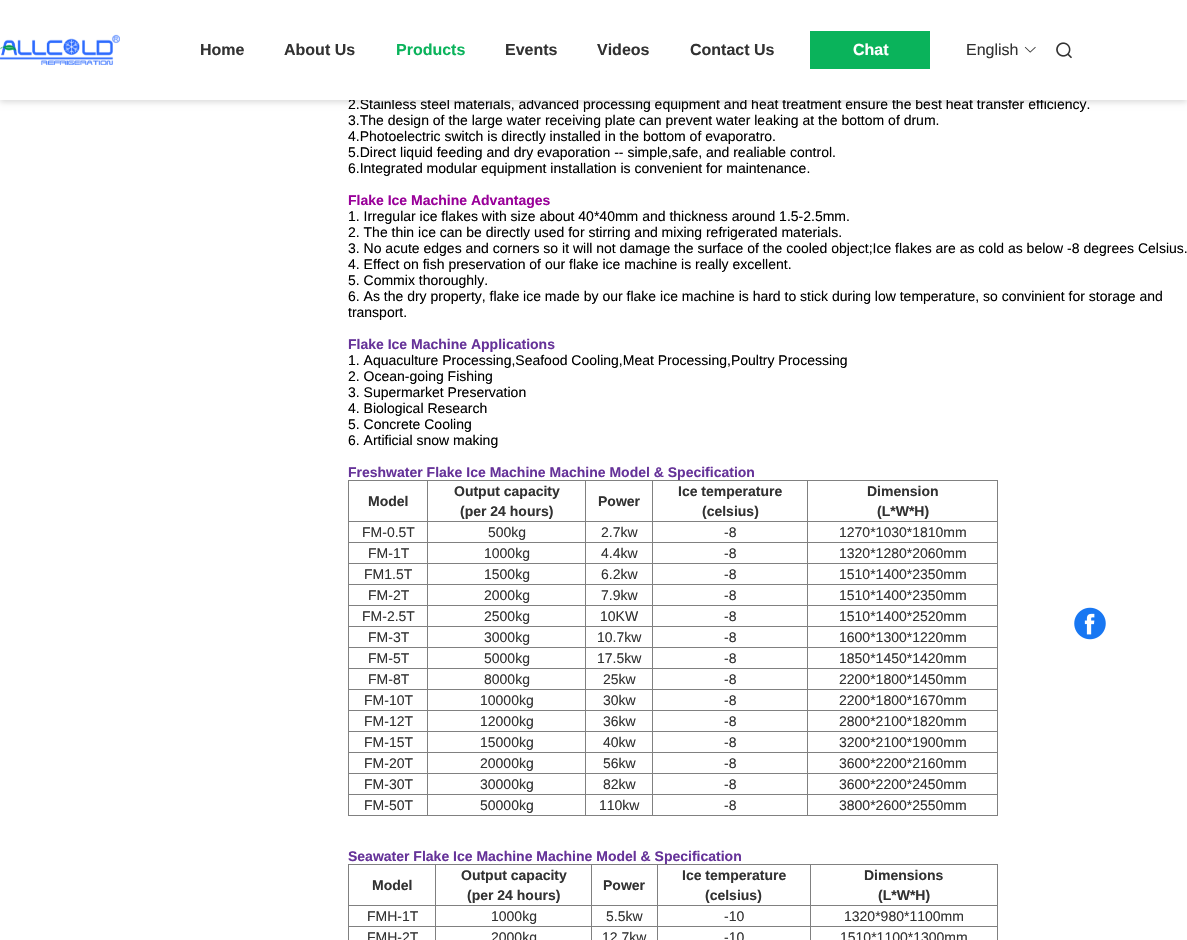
#include "include/core/SkBlurTypes.h"
#include "include/core/SkCanvas.h"
#include "include/core/SkData.h"
#include "include/core/SkFont.h"
#include "include/core/SkFontMgr.h"
#include "include/core/SkImage.h"
#include "include/core/SkMaskFilter.h"
#include "include/core/SkPaint.h"
#include "include/core/SkPathBuilder.h"
#include "include/core/SkTextBlob.h"
#include "include/effects/SkDashPathEffect.h"
#include "include/effects/SkGradientShader.h"
#include "include/utils/SkParsePath.h"

extern sk_sp<SkFontMgr> fontMgr;

void draw(SkCanvas* canvas) {
  SkPaint p;
  p.setAntiAlias(true);
  canvas->clear(SK_ColorWHITE);
  p.setColor(SkColorSetARGB(38, 0, 0, 0));
  p.setMaskFilter(SkMaskFilter::MakeBlur(kNormal_SkBlurStyle, 3));
  canvas->drawRect(SkRect::MakeLTRB(0, 2, 1187, 102), p);
  p.setMaskFilter(nullptr);
  p.setColor(SkColorSetRGB(128, 128, 128));
  canvas->drawRect(SkRect::MakeLTRB(348, 480, 998, 481), p);
  canvas->drawRect(SkRect::MakeLTRB(997, 480, 998, 816), p);
  canvas->drawRect(SkRect::MakeLTRB(348, 815, 998, 816), p);
  canvas->drawRect(SkRect::MakeLTRB(348, 480, 349, 816), p);
  canvas->drawRect(SkRect::MakeLTRB(807, 521, 998, 522), p);
  canvas->drawRect(SkRect::MakeLTRB(807, 542, 998, 543), p);
  canvas->drawRect(SkRect::MakeLTRB(807, 563, 998, 564), p);
  canvas->drawRect(SkRect::MakeLTRB(807, 584, 998, 585), p);
  canvas->drawRect(SkRect::MakeLTRB(807, 605, 998, 606), p);
  canvas->drawRect(SkRect::MakeLTRB(807, 626, 998, 627), p);
  canvas->drawRect(SkRect::MakeLTRB(807, 647, 998, 648), p);
  canvas->drawRect(SkRect::MakeLTRB(807, 668, 998, 669), p);
  canvas->drawRect(SkRect::MakeLTRB(807, 689, 998, 690), p);
  canvas->drawRect(SkRect::MakeLTRB(807, 710, 998, 711), p);
  canvas->drawRect(SkRect::MakeLTRB(807, 731, 998, 732), p);
  canvas->drawRect(SkRect::MakeLTRB(807, 752, 998, 753), p);
  canvas->drawRect(SkRect::MakeLTRB(807, 773, 998, 774), p);
  canvas->drawRect(SkRect::MakeLTRB(807, 794, 998, 795), p);
  canvas->drawRect(SkRect::MakeLTRB(807, 794, 808, 816), p);
  canvas->drawRect(SkRect::MakeLTRB(652, 794, 808, 795), p);
  canvas->drawRect(SkRect::MakeLTRB(807, 773, 808, 795), p);
  canvas->drawRect(SkRect::MakeLTRB(652, 773, 808, 774), p);
  canvas->drawRect(SkRect::MakeLTRB(807, 752, 808, 774), p);
  canvas->drawRect(SkRect::MakeLTRB(652, 752, 808, 753), p);
  canvas->drawRect(SkRect::MakeLTRB(807, 731, 808, 753), p);
  canvas->drawRect(SkRect::MakeLTRB(652, 731, 808, 732), p);
  canvas->drawRect(SkRect::MakeLTRB(807, 710, 808, 732), p);
  canvas->drawRect(SkRect::MakeLTRB(652, 710, 808, 711), p);
  canvas->drawRect(SkRect::MakeLTRB(807, 689, 808, 711), p);
  canvas->drawRect(SkRect::MakeLTRB(652, 689, 808, 690), p);
  canvas->drawRect(SkRect::MakeLTRB(807, 668, 808, 690), p);
  canvas->drawRect(SkRect::MakeLTRB(652, 668, 808, 669), p);
  canvas->drawRect(SkRect::MakeLTRB(807, 647, 808, 669), p);
  canvas->drawRect(SkRect::MakeLTRB(652, 647, 808, 648), p);
  canvas->drawRect(SkRect::MakeLTRB(807, 626, 808, 648), p);
  canvas->drawRect(SkRect::MakeLTRB(652, 626, 808, 627), p);
  canvas->drawRect(SkRect::MakeLTRB(807, 605, 808, 627), p);
  canvas->drawRect(SkRect::MakeLTRB(652, 605, 808, 606), p);
  canvas->drawRect(SkRect::MakeLTRB(807, 584, 808, 606), p);
  canvas->drawRect(SkRect::MakeLTRB(652, 584, 808, 585), p);
  canvas->drawRect(SkRect::MakeLTRB(807, 563, 808, 585), p);
  canvas->drawRect(SkRect::MakeLTRB(652, 563, 808, 564), p);
  canvas->drawRect(SkRect::MakeLTRB(807, 542, 808, 564), p);
  canvas->drawRect(SkRect::MakeLTRB(652, 542, 808, 543), p);
  canvas->drawRect(SkRect::MakeLTRB(807, 521, 808, 543), p);
  canvas->drawRect(SkRect::MakeLTRB(652, 521, 808, 522), p);
  canvas->drawRect(SkRect::MakeLTRB(652, 794, 653, 816), p);
  canvas->drawRect(SkRect::MakeLTRB(585, 794, 653, 795), p);
  canvas->drawRect(SkRect::MakeLTRB(652, 773, 653, 795), p);
  canvas->drawRect(SkRect::MakeLTRB(585, 773, 653, 774), p);
  canvas->drawRect(SkRect::MakeLTRB(652, 752, 653, 774), p);
  canvas->drawRect(SkRect::MakeLTRB(585, 752, 653, 753), p);
  canvas->drawRect(SkRect::MakeLTRB(652, 731, 653, 753), p);
  canvas->drawRect(SkRect::MakeLTRB(585, 731, 653, 732), p);
  canvas->drawRect(SkRect::MakeLTRB(652, 710, 653, 732), p);
  canvas->drawRect(SkRect::MakeLTRB(585, 710, 653, 711), p);
  canvas->drawRect(SkRect::MakeLTRB(652, 689, 653, 711), p);
  canvas->drawRect(SkRect::MakeLTRB(585, 689, 653, 690), p);
  canvas->drawRect(SkRect::MakeLTRB(652, 668, 653, 690), p);
  canvas->drawRect(SkRect::MakeLTRB(585, 668, 653, 669), p);
  canvas->drawRect(SkRect::MakeLTRB(652, 647, 653, 669), p);
  canvas->drawRect(SkRect::MakeLTRB(585, 647, 653, 648), p);
  canvas->drawRect(SkRect::MakeLTRB(652, 626, 653, 648), p);
  canvas->drawRect(SkRect::MakeLTRB(585, 626, 653, 627), p);
  canvas->drawRect(SkRect::MakeLTRB(652, 605, 653, 627), p);
  canvas->drawRect(SkRect::MakeLTRB(585, 605, 653, 606), p);
  canvas->drawRect(SkRect::MakeLTRB(652, 584, 653, 606), p);
  canvas->drawRect(SkRect::MakeLTRB(585, 584, 653, 585), p);
  canvas->drawRect(SkRect::MakeLTRB(652, 563, 653, 585), p);
  canvas->drawRect(SkRect::MakeLTRB(585, 563, 653, 564), p);
  canvas->drawRect(SkRect::MakeLTRB(652, 542, 653, 564), p);
  canvas->drawRect(SkRect::MakeLTRB(585, 542, 653, 543), p);
  canvas->drawRect(SkRect::MakeLTRB(652, 521, 653, 543), p);
  canvas->drawRect(SkRect::MakeLTRB(585, 521, 653, 522), p);
  canvas->drawRect(SkRect::MakeLTRB(585, 794, 586, 816), p);
  canvas->drawRect(SkRect::MakeLTRB(427, 794, 586, 795), p);
  canvas->drawRect(SkRect::MakeLTRB(585, 773, 586, 795), p);
  canvas->drawRect(SkRect::MakeLTRB(427, 773, 586, 774), p);
  canvas->drawRect(SkRect::MakeLTRB(585, 752, 586, 774), p);
  canvas->drawRect(SkRect::MakeLTRB(427, 752, 586, 753), p);
  canvas->drawRect(SkRect::MakeLTRB(585, 731, 586, 753), p);
  canvas->drawRect(SkRect::MakeLTRB(427, 731, 586, 732), p);
  canvas->drawRect(SkRect::MakeLTRB(585, 710, 586, 732), p);
  canvas->drawRect(SkRect::MakeLTRB(427, 710, 586, 711), p);
  canvas->drawRect(SkRect::MakeLTRB(585, 689, 586, 711), p);
  canvas->drawRect(SkRect::MakeLTRB(427, 689, 586, 690), p);
  canvas->drawRect(SkRect::MakeLTRB(585, 668, 586, 690), p);
  canvas->drawRect(SkRect::MakeLTRB(427, 668, 586, 669), p);
  canvas->drawRect(SkRect::MakeLTRB(585, 647, 586, 669), p);
  canvas->drawRect(SkRect::MakeLTRB(427, 647, 586, 648), p);
  canvas->drawRect(SkRect::MakeLTRB(585, 626, 586, 648), p);
  canvas->drawRect(SkRect::MakeLTRB(427, 626, 586, 627), p);
  canvas->drawRect(SkRect::MakeLTRB(585, 605, 586, 627), p);
  canvas->drawRect(SkRect::MakeLTRB(427, 605, 586, 606), p);
  canvas->drawRect(SkRect::MakeLTRB(585, 584, 586, 606), p);
  canvas->drawRect(SkRect::MakeLTRB(427, 584, 586, 585), p);
  canvas->drawRect(SkRect::MakeLTRB(585, 563, 586, 585), p);
  canvas->drawRect(SkRect::MakeLTRB(427, 563, 586, 564), p);
  canvas->drawRect(SkRect::MakeLTRB(585, 542, 586, 564), p);
  canvas->drawRect(SkRect::MakeLTRB(427, 542, 586, 543), p);
  canvas->drawRect(SkRect::MakeLTRB(585, 521, 586, 543), p);
  canvas->drawRect(SkRect::MakeLTRB(427, 521, 586, 522), p);
  canvas->drawRect(SkRect::MakeLTRB(427, 794, 428, 816), p);
  canvas->drawRect(SkRect::MakeLTRB(348, 794, 428, 795), p);
  canvas->drawRect(SkRect::MakeLTRB(427, 773, 428, 795), p);
  canvas->drawRect(SkRect::MakeLTRB(348, 773, 428, 774), p);
  canvas->drawRect(SkRect::MakeLTRB(427, 752, 428, 774), p);
  canvas->drawRect(SkRect::MakeLTRB(348, 752, 428, 753), p);
  canvas->drawRect(SkRect::MakeLTRB(427, 731, 428, 753), p);
  canvas->drawRect(SkRect::MakeLTRB(348, 731, 428, 732), p);
  canvas->drawRect(SkRect::MakeLTRB(427, 710, 428, 732), p);
  canvas->drawRect(SkRect::MakeLTRB(348, 710, 428, 711), p);
  canvas->drawRect(SkRect::MakeLTRB(427, 689, 428, 711), p);
  canvas->drawRect(SkRect::MakeLTRB(348, 689, 428, 690), p);
  canvas->drawRect(SkRect::MakeLTRB(427, 668, 428, 690), p);
  canvas->drawRect(SkRect::MakeLTRB(348, 668, 428, 669), p);
  canvas->drawRect(SkRect::MakeLTRB(427, 647, 428, 669), p);
  canvas->drawRect(SkRect::MakeLTRB(348, 647, 428, 648), p);
  canvas->drawRect(SkRect::MakeLTRB(427, 626, 428, 648), p);
  canvas->drawRect(SkRect::MakeLTRB(348, 626, 428, 627), p);
  canvas->drawRect(SkRect::MakeLTRB(427, 605, 428, 627), p);
  canvas->drawRect(SkRect::MakeLTRB(348, 605, 428, 606), p);
  canvas->drawRect(SkRect::MakeLTRB(427, 584, 428, 606), p);
  canvas->drawRect(SkRect::MakeLTRB(348, 584, 428, 585), p);
  canvas->drawRect(SkRect::MakeLTRB(427, 563, 428, 585), p);
  canvas->drawRect(SkRect::MakeLTRB(348, 563, 428, 564), p);
  canvas->drawRect(SkRect::MakeLTRB(427, 542, 428, 564), p);
  canvas->drawRect(SkRect::MakeLTRB(348, 542, 428, 543), p);
  canvas->drawRect(SkRect::MakeLTRB(427, 521, 428, 543), p);
  canvas->drawRect(SkRect::MakeLTRB(348, 521, 428, 522), p);
  canvas->drawRect(SkRect::MakeLTRB(427, 480, 428, 522), p);
  canvas->drawRect(SkRect::MakeLTRB(585, 480, 586, 522), p);
  canvas->drawRect(SkRect::MakeLTRB(652, 480, 653, 522), p);
  canvas->drawRect(SkRect::MakeLTRB(807, 480, 808, 522), p);
  canvas->drawRect(SkRect::MakeLTRB(348, 864, 998, 865), p);
  canvas->drawRect(SkRect::MakeLTRB(997, 864, 998, 940), p);
  canvas->drawRect(SkRect::MakeLTRB(348, 864, 349, 940), p);
  canvas->drawRect(SkRect::MakeLTRB(810, 905, 998, 906), p);
  canvas->drawRect(SkRect::MakeLTRB(810, 926, 998, 927), p);
  canvas->drawRect(SkRect::MakeLTRB(810, 926, 811, 940), p);
  canvas->drawRect(SkRect::MakeLTRB(657, 926, 811, 927), p);
  canvas->drawRect(SkRect::MakeLTRB(810, 905, 811, 927), p);
  canvas->drawRect(SkRect::MakeLTRB(657, 905, 811, 906), p);
  canvas->drawRect(SkRect::MakeLTRB(657, 926, 658, 940), p);
  canvas->drawRect(SkRect::MakeLTRB(591, 926, 658, 927), p);
  canvas->drawRect(SkRect::MakeLTRB(657, 905, 658, 927), p);
  canvas->drawRect(SkRect::MakeLTRB(591, 905, 658, 906), p);
  canvas->drawRect(SkRect::MakeLTRB(591, 926, 592, 940), p);
  canvas->drawRect(SkRect::MakeLTRB(435, 926, 592, 927), p);
  canvas->drawRect(SkRect::MakeLTRB(591, 905, 592, 927), p);
  canvas->drawRect(SkRect::MakeLTRB(435, 905, 592, 906), p);
  canvas->drawRect(SkRect::MakeLTRB(435, 926, 436, 940), p);
  canvas->drawRect(SkRect::MakeLTRB(348, 926, 436, 927), p);
  canvas->drawRect(SkRect::MakeLTRB(435, 905, 436, 927), p);
  canvas->drawRect(SkRect::MakeLTRB(348, 905, 436, 906), p);
  canvas->drawRect(SkRect::MakeLTRB(435, 864, 436, 906), p);
  canvas->drawRect(SkRect::MakeLTRB(591, 864, 592, 906), p);
  canvas->drawRect(SkRect::MakeLTRB(657, 864, 658, 906), p);
  canvas->drawRect(SkRect::MakeLTRB(810, 864, 811, 906), p);
  canvas->drawImageRect(SkImages::DeferredFromEncodedData(SkData::MakeFromFileName("images/4.png")), SkRect::MakeLTRB(1074, 607, 1106, 640), SkSamplingOptions());
  SkFont font1(fontMgr->matchFamilyStyle("Liberation Sans", SkFontStyle::Normal()), 14);
  font1.setSubpixel(true);
  p.setColor(SK_ColorBLACK);
  canvas->drawString("2.Stainless steel materials, advanced processing equipment and heat treatment ensure the best heat transfer efficiency.", 348, 109, font1, p);
  p.setColor(SK_ColorWHITE);
  canvas->drawRect(SkRect::MakeLTRB(0, 0, 1187, 100), p);
  canvas->drawImageRect(SkImages::DeferredFromEncodedData(SkData::MakeFromFileName("images/3.png")), SkRect::MakeLTRB(1056, 42, 1072, 59), SkSamplingOptions());
  canvas->drawImageRect(SkImages::DeferredFromEncodedData(SkData::MakeFromFileName("images/2.png")), SkRect::MakeLTRB(1024, 46, 1036, 53), SkSamplingOptions());
  SkFont font2(fontMgr->matchFamilyStyle("Liberation Sans", SkFontStyle::Normal()), 16);
  font2.setSubpixel(true);
  p.setColor(SkColorSetRGB(50, 50, 50));
  canvas->drawString("English", 966, 55, font2, p);
  SkFont font3(fontMgr->matchFamilyStyle("Liberation Sans", SkFontStyle::Bold()), 16);
  font3.setSubpixel(true);
  canvas->drawString("Contact Us", 690, 55, font3, p);
  canvas->drawString("Videos", 597, 55, font3, p);
  canvas->drawString("Events", 505, 55, font3, p);
  p.setColor(SkColorSetRGB(10, 179, 91));
  canvas->drawString("Products", 396, 55, font3, p);
  p.setColor(SkColorSetRGB(50, 50, 50));
  canvas->drawString("About Us", 284, 55, font3, p);
  canvas->drawString("Home", 200, 55, font3, p);
  p.setColor(SkColorSetRGB(10, 179, 91));
  canvas->drawRect(SkRect::MakeLTRB(810, 31, 930, 69), p);
  p.setColor(SK_ColorWHITE);
  canvas->drawString("Chat", 853, 55, font3, p);
  canvas->drawImageRect(SkImages::DeferredFromEncodedData(SkData::MakeFromFileName("images/1.png")), SkRect::MakeLTRB(0, 34, 120, 65), SkSamplingOptions());
  p.setColor(SK_ColorBLACK);
  canvas->drawString("3.The design of the large water receiving plate can prevent water leaking at the bottom of drum.", 348, 125, font1, p);
  canvas->drawString("4.Photoelectric switch is directly installed in the bottom of evaporatro.", 348, 141, font1, p);
  canvas->drawString("5.Direct liquid feeding and dry evaporation -- simple,safe, and realiable control.", 348, 157, font1, p);
  canvas->drawString("6.Integrated modular equipment installation is convenient for maintenance.", 348, 173, font1, p);
  SkFont font4(fontMgr->matchFamilyStyle("Liberation Sans", SkFontStyle::Bold()), 14);
  font4.setSubpixel(true);
  p.setColor(SkColorSetRGB(153, 0, 153));
  canvas->drawString("Flake Ice Machine Advantages", 348, 205, font4, p);
  p.setColor(SK_ColorBLACK);
  canvas->drawString("1. Irregular ice flakes with size about 40*40mm and thickness around 1.5-2.5mm.", 348, 221, font1, p);
  canvas->drawString("2. The thin ice can be directly used for stirring and mixing refrigerated materials.", 348, 237, font1, p);
  canvas->drawString("3. No acute edges and corners so it will not damage the surface of the cooled object;Ice flakes are as cold as below -8 degrees Celsius.", 348, 253, font1, p);
  canvas->drawString("4. Effect on fish preservation of our flake ice machine is really excellent.", 348, 269, font1, p);
  canvas->drawString("5. Commix thoroughly.", 348, 285, font1, p);
  canvas->drawString("6. As the dry property, flake ice made by our flake ice machine is hard to stick during low temperature, so convinient for storage and", 348, 301, font1, p);
  canvas->drawString("transport.", 348, 317, font1, p);
  p.setColor(SkColorSetRGB(102, 51, 153));
  canvas->drawString("Flake Ice Machine Applications", 348, 349, font4, p);
  p.setColor(SK_ColorBLACK);
  canvas->drawString("1. Aquaculture Processing,Seafood Cooling,Meat Processing,Poultry Processing", 348, 365, font1, p);
  canvas->drawString("2. Ocean-going Fishing", 348, 381, font1, p);
  canvas->drawString("3. Supermarket Preservation", 348, 397, font1, p);
  canvas->drawString("4. Biological Research", 348, 413, font1, p);
  canvas->drawString("5. Concrete Cooling", 348, 429, font1, p);
  canvas->drawString("6. Artificial snow making", 348, 445, font1, p);
  p.setColor(SkColorSetRGB(102, 51, 153));
  canvas->drawString("Freshwater Flake Ice Machine Machine Model & Specification", 348, 477, font4, p);
  p.setColor(SkColorSetRGB(50, 50, 50));
  canvas->drawString("Model", 368, 506, font4, p);
  canvas->drawString("Output capacity", 454, 496, font4, p);
  canvas->drawString("(per 24 hours)", 460, 516, font4, p);
  canvas->drawString("Power", 598, 506, font4, p);
  canvas->drawString("Ice temperature", 678, 496, font4, p);
  canvas->drawString("(celsius)", 702, 516, font4, p);
  canvas->drawString("Dimension", 867, 496, font4, p);
  canvas->drawString("(L*W*H)", 877, 516, font4, p);
  canvas->drawString("FM-0.5T", 362, 537, font1, p);
  canvas->drawString("500kg", 488, 537, font1, p);
  canvas->drawString("2.7kw", 601, 537, font1, p);
  canvas->drawString("-8", 724, 537, font1, p);
  canvas->drawString("1270*1030*1810mm", 839, 537, font1, p);
  canvas->drawString("FM-1T", 368, 558, font1, p);
  canvas->drawString("1000kg", 484, 558, font1, p);
  canvas->drawString("4.4kw", 601, 558, font1, p);
  canvas->drawString("-8", 724, 558, font1, p);
  canvas->drawString("1320*1280*2060mm", 839, 558, font1, p);
  canvas->drawString("FM1.5T", 364, 579, font1, p);
  canvas->drawString("1500kg", 484, 579, font1, p);
  canvas->drawString("6.2kw", 601, 579, font1, p);
  canvas->drawString("-8", 724, 579, font1, p);
  canvas->drawString("1510*1400*2350mm", 839, 579, font1, p);
  canvas->drawString("FM-2T", 368, 600, font1, p);
  canvas->drawString("2000kg", 484, 600, font1, p);
  canvas->drawString("7.9kw", 601, 600, font1, p);
  canvas->drawString("-8", 724, 600, font1, p);
  canvas->drawString("1510*1400*2350mm", 839, 600, font1, p);
  canvas->drawString("FM-2.5T", 362, 621, font1, p);
  canvas->drawString("2500kg", 484, 621, font1, p);
  canvas->drawString("10KW", 600, 621, font1, p);
  canvas->drawString("-8", 724, 621, font1, p);
  canvas->drawString("1510*1400*2520mm", 839, 621, font1, p);
  canvas->drawString("FM-3T", 368, 642, font1, p);
  canvas->drawString("3000kg", 484, 642, font1, p);
  canvas->drawString("10.7kw", 597, 642, font1, p);
  canvas->drawString("-8", 724, 642, font1, p);
  canvas->drawString("1600*1300*1220mm", 839, 642, font1, p);
  canvas->drawString("FM-5T", 368, 663, font1, p);
  canvas->drawString("5000kg", 484, 663, font1, p);
  canvas->drawString("17.5kw", 597, 663, font1, p);
  canvas->drawString("-8", 724, 663, font1, p);
  canvas->drawString("1850*1450*1420mm", 839, 663, font1, p);
  canvas->drawString("FM-8T", 368, 684, font1, p);
  canvas->drawString("8000kg", 484, 684, font1, p);
  canvas->drawString("25kw", 603, 684, font1, p);
  canvas->drawString("-8", 724, 684, font1, p);
  canvas->drawString("2200*1800*1450mm", 839, 684, font1, p);
  canvas->drawString("FM-10T", 364, 705, font1, p);
  canvas->drawString("10000kg", 480, 705, font1, p);
  canvas->drawString("30kw", 603, 705, font1, p);
  canvas->drawString("-8", 724, 705, font1, p);
  canvas->drawString("2200*1800*1670mm", 839, 705, font1, p);
  canvas->drawString("FM-12T", 364, 726, font1, p);
  canvas->drawString("12000kg", 480, 726, font1, p);
  canvas->drawString("36kw", 603, 726, font1, p);
  canvas->drawString("-8", 724, 726, font1, p);
  canvas->drawString("2800*2100*1820mm", 839, 726, font1, p);
  canvas->drawString("FM-15T", 364, 747, font1, p);
  canvas->drawString("15000kg", 480, 747, font1, p);
  canvas->drawString("40kw", 603, 747, font1, p);
  canvas->drawString("-8", 724, 747, font1, p);
  canvas->drawString("3200*2100*1900mm", 839, 747, font1, p);
  canvas->drawString("FM-20T", 364, 768, font1, p);
  canvas->drawString("20000kg", 480, 768, font1, p);
  canvas->drawString("56kw", 603, 768, font1, p);
  canvas->drawString("-8", 724, 768, font1, p);
  canvas->drawString("3600*2200*2160mm", 839, 768, font1, p);
  canvas->drawString("FM-30T", 364, 789, font1, p);
  canvas->drawString("30000kg", 480, 789, font1, p);
  canvas->drawString("82kw", 603, 789, font1, p);
  canvas->drawString("-8", 724, 789, font1, p);
  canvas->drawString("3600*2200*2450mm", 839, 789, font1, p);
  canvas->drawString("FM-50T", 364, 810, font1, p);
  canvas->drawString("50000kg", 480, 810, font1, p);
  canvas->drawString("110kw", 599, 810, font1, p);
  canvas->drawString("-8", 724, 810, font1, p);
  canvas->drawString("3800*2600*2550mm", 839, 810, font1, p);
  p.setColor(SkColorSetRGB(102, 51, 153));
  canvas->drawString("Seawater Flake Ice Machine Machine Model & Specification", 348, 861, font4, p);
  p.setColor(SkColorSetRGB(50, 50, 50));
  canvas->drawString("Model", 372, 890, font4, p);
  canvas->drawString("Output capacity", 461, 880, font4, p);
  canvas->drawString("(per 24 hours)", 467, 900, font4, p);
  canvas->drawString("Power", 603, 890, font4, p);
  canvas->drawString("Ice temperature", 682, 880, font4, p);
  canvas->drawString("(celsius)", 705, 900, font4, p);
  canvas->drawString("Dimensions", 864, 880, font4, p);
  canvas->drawString("(L*W*H)", 878, 900, font4, p);
  canvas->drawString("FMH-1T", 367, 921, font1, p);
  canvas->drawString("1000kg", 491, 921, font1, p);
  canvas->drawString("5.5kw", 606, 921, font1, p);
  canvas->drawString("-10", 724, 921, font1, p);
  canvas->drawString("1320*980*1100mm", 844, 921, font1, p);
  canvas->drawString("FMH-2T", 367, 942, font1, p);
  canvas->drawString("2000kg", 491, 942, font1, p);
  canvas->drawString("12.7kw", 602, 942, font1, p);
  canvas->drawString("-10", 724, 942, font1, p);
  canvas->drawString("1510*1100*1300mm", 840, 942, font1, p);
}
